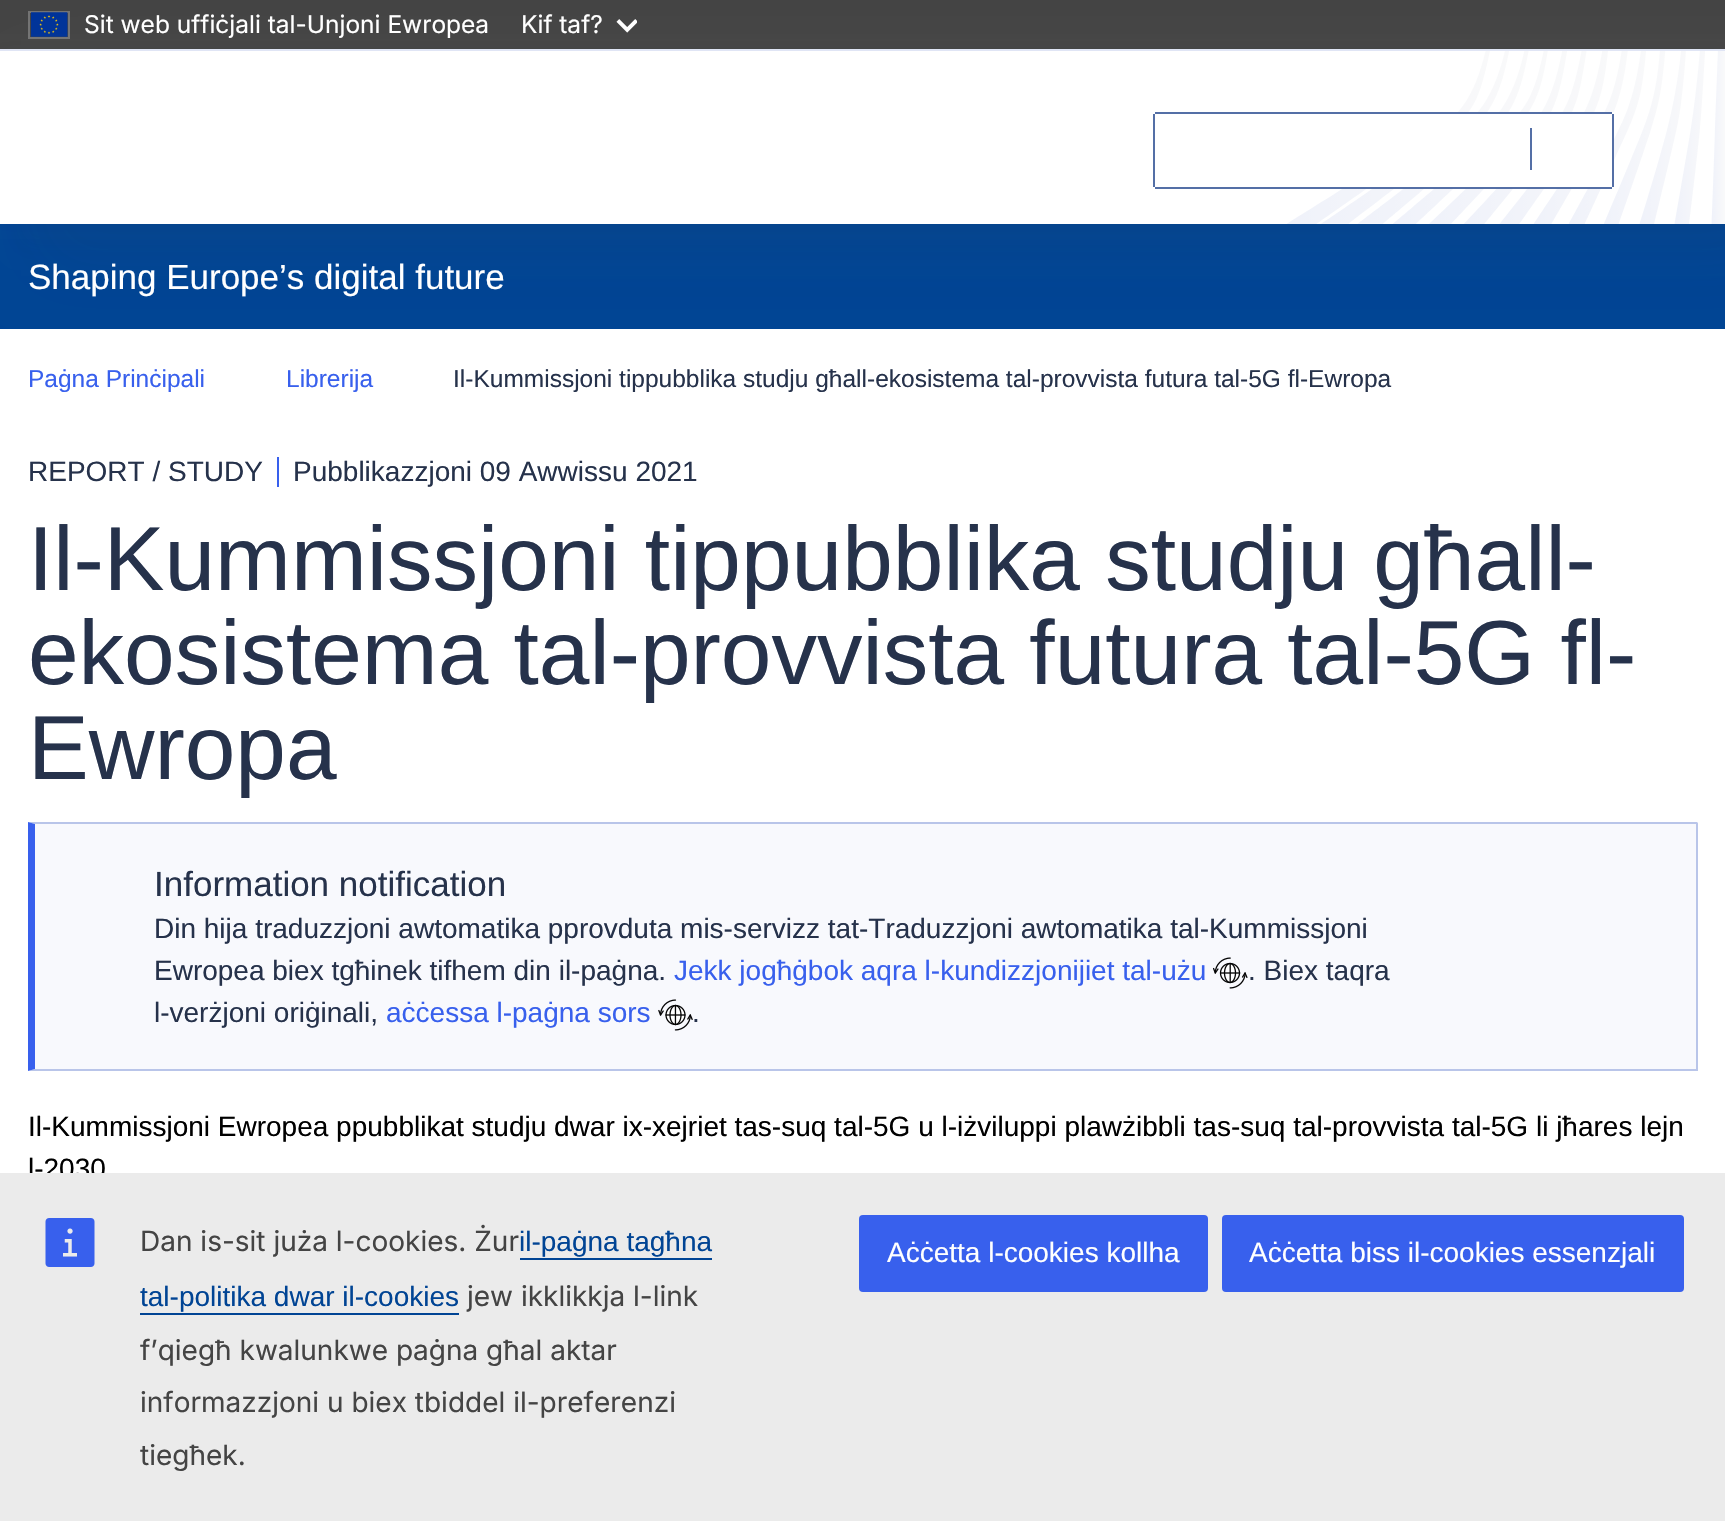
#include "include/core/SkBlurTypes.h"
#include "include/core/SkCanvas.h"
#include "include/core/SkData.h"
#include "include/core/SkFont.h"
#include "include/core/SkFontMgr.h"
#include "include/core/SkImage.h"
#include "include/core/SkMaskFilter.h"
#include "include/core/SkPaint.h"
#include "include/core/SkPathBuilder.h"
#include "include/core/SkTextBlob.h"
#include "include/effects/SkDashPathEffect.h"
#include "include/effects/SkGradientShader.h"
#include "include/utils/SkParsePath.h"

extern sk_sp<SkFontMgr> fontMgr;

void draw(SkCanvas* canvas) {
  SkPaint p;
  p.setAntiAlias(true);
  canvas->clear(SK_ColorWHITE);
  p.setColor(SkColorSetRGB(68, 68, 68));
  canvas->drawRect(SkRect::MakeLTRB(0, 0, 1725, 49), p);
  p.setStyle(SkPaint::kStroke_Style);
  p.setStrokeWidth(2);
  p.setColor(SkColorSetRGB(115, 115, 115));
  canvas->drawRect(SkRect::MakeLTRB(29, 12, 69, 38), p);
  canvas->drawImageRect(SkImages::DeferredFromEncodedData(SkData::MakeFromFileName("images/1.png")), SkRect::MakeLTRB(31, 12, 68, 37), SkSamplingOptions());
  canvas->drawImageRect(SkImages::DeferredFromEncodedData(SkData::MakeFromFileName("images/2.png")), SkRect::MakeLTRB(616, 19, 637, 33), SkSamplingOptions());
  p.setStyle(SkPaint::kFill_Style);
  p.setColor(SkColorSetRGB(0, 68, 148));
  canvas->drawRect(SkRect::MakeLTRB(0, 224, 1725, 329), p);
  p.setColor(SkColorSetARGB(13, 38, 50, 75));
  p.setMaskFilter(SkMaskFilter::MakeBlur(kNormal_SkBlurStyle, 31.5f));
  canvas->drawRect(SkRect::MakeLTRB(42, 91, 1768, 266), p);
  p.setMaskFilter(nullptr);
  p.setMaskFilter(SkMaskFilter::MakeBlur(kNormal_SkBlurStyle, 10.5f));
  canvas->drawRect(SkRect::MakeLTRB(21, 70, 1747, 245), p);
  p.setMaskFilter(nullptr);
  p.setColor(SkColorSetARGB(15, 38, 50, 75));
  p.setMaskFilter(SkMaskFilter::MakeBlur(kNormal_SkBlurStyle, 5));
  canvas->drawRect(SkRect::MakeLTRB(0, 49, 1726, 224), p);
  p.setMaskFilter(nullptr);
  p.setColor(SK_ColorWHITE);
  canvas->drawRect(SkRect::MakeLTRB(0, 51, 1725, 224), p);
  canvas->drawImageRect(SkImages::DeferredFromEncodedData(SkData::MakeFromFileName("images/3.png")), SkRect::MakeLTRB(1287, 51, 1725, 224), SkSamplingOptions());
  p.setColor(SkColorSetRGB(224, 229, 245));
  canvas->drawRect(SkRect::MakeLTRB(0, 49, 1725, 51), p);
  p.setColor(SK_ColorWHITE);
  canvas->drawRect(SkRect::MakeLTRB(1342, 112, 1614, 189), p);
  p.setColor(SkColorSetRGB(84, 111, 166));
  canvas->drawRect(SkRect::MakeLTRB(1155, 112, 1612, 114), p);
  canvas->drawRect(SkRect::MakeLTRB(1155, 187, 1612, 189), p);
  canvas->drawRect(SkRect::MakeLTRB(1153, 114, 1155, 187), p);
  canvas->drawRect(SkRect::MakeLTRB(1612, 114, 1614, 187), p);
  canvas->drawRect(SkRect::MakeLTRB(1530, 128, 1532, 170), p);
  p.setColor(SkColorSetRGB(56, 96, 237));
  canvas->drawRect(SkRect::MakeLTRB(277, 457, 279, 487), p);
  p.setColor(SkColorSetRGB(248, 249, 253));
  canvas->drawRect(SkRect::MakeLTRB(35, 824, 1696, 1069), p);
  p.setColor(SkColorSetRGB(185, 197, 233));
  canvas->drawPath(SkPathBuilder().moveTo(28, 822).lineTo(1698, 822).lineTo(1696, 824).lineTo(35, 824).close().detach(), p);
  canvas->drawRect(SkRect::MakeLTRB(1696, 823, 1698, 1071), p);
  canvas->drawPath(SkPathBuilder().moveTo(1698, 1071).lineTo(28, 1071).lineTo(35, 1069).lineTo(1696, 1069).close().detach(), p);
  p.setColor(SkColorSetRGB(56, 96, 237));
  canvas->drawPath(SkPathBuilder().moveTo(28, 1071).lineTo(28, 822).lineTo(35, 824).lineTo(35, 1069).close().detach(), p);
  canvas->drawImageRect(SkImages::DeferredFromEncodedData(SkData::MakeFromFileName("images/4.png")), SkRect::MakeLTRB(1213, 957, 1248, 989), SkSamplingOptions());
  canvas->drawImageRect(SkImages::DeferredFromEncodedData(SkData::MakeFromFileName("images/5.png")), SkRect::MakeLTRB(658, 999, 693, 1031), SkSamplingOptions());
  SkFont font1(fontMgr->matchFamilyStyle("Inter", SkFontStyle::Normal()), 24.5f);
  font1.setSubpixel(true);
  p.setColor(SK_ColorWHITE);
  canvas->drawString("Sit web uffiċjali tal-Unjoni Ewropea", 84, 33, font1, p);
  canvas->drawString("Kif taf?", 521, 33, font1, p);
  SkFont font2(fontMgr->matchFamilyStyle("Liberation Sans", SkFontStyle::Normal()), 35);
  font2.setSubpixel(true);
  canvas->drawString("Shaping Europe’s digital future", 28, 289, font2, p);
  SkFont font3(fontMgr->matchFamilyStyle("Liberation Sans", SkFontStyle::Normal()), 24.5f);
  font3.setSubpixel(true);
  p.setColor(SkColorSetRGB(56, 96, 237));
  canvas->drawString("Paġna Prinċipali", 28, 387, font3, p);
  canvas->drawString("Librerija", 286, 387, font3, p);
  p.setColor(SkColorSetRGB(38, 50, 75));
  canvas->drawString("Il-Kummissjoni tippubblika studju għall-ekosistema tal-provvista futura tal-5G fl-Ewropa", 453, 387, font3, p);
  SkFont font4(fontMgr->matchFamilyStyle("Liberation Sans", SkFontStyle::Normal()), 28);
  font4.setSubpixel(true);
  canvas->drawString("REPORT / STUDY", 28, 481, font4, p);
  canvas->drawString("Pubblikazzjoni 09 Awwissu 2021", 293, 481, font4, p);
  SkFont font5(fontMgr->matchFamilyStyle("Liberation Sans", SkFontStyle::Normal()), 91);
  font5.setSubpixel(true);
  canvas->drawString("Il-Kummissjoni tippubblika studju għall-", 28, 590, font5, p);
  canvas->drawString("ekosistema tal-provvista futura tal-5G fl-", 28, 684, font5, p);
  canvas->drawString("Ewropa", 28, 779, font5, p);
  canvas->drawString("Information notification", 154, 896, font2, p);
  canvas->drawString("Din hija traduzzjoni awtomatika pprovduta mis-servizz tat-Traduzzjoni awtomatika tal-Kummissjoni", 154, 938, font4, p);
  canvas->drawString("Ewropea biex tgħinek tifhem din il-paġna.", 154, 980, font4, p);
  p.setColor(SkColorSetRGB(56, 96, 237));
  canvas->drawString("Jekk jogħġbok aqra l-kundizzjonijiet tal-użu", 674, 980, font4, p);
  p.setColor(SkColorSetRGB(38, 50, 75));
  canvas->drawString(". Biex taqra", 1248, 980, font4, p);
  canvas->drawString("l-verżjoni oriġinali,", 154, 1022, font4, p);
  p.setColor(SkColorSetRGB(56, 96, 237));
  canvas->drawString("aċċessa l-paġna sors", 386, 1022, font4, p);
  p.setColor(SkColorSetRGB(38, 50, 75));
  canvas->drawString(".", 692, 1022, font4, p);
  p.setColor(SK_ColorBLACK);
  canvas->drawString("Il-Kummissjoni Ewropea ppubblikat studju dwar ix-xejriet tas-suq tal-5G u l-iżviluppi plawżibbli tas-suq tal-provvista tal-5G li jħares lejn", 28, 1136, font4, p);
  canvas->drawString("l-2030", 28, 1178, font4, p);
  p.setColor(SkColorSetRGB(235, 235, 235));
  canvas->drawRect(SkRect::MakeLTRB(0, 1173, 1725, 1521), p);
  canvas->drawImageRect(SkImages::DeferredFromEncodedData(SkData::MakeFromFileName("images/6.png")), SkRect::MakeLTRB(45, 1218, 95, 1267), SkSamplingOptions());
  SkFont font6(fontMgr->matchFamilyStyle("Inter", SkFontStyle::Normal()), 28);
  font6.setSubpixel(true);
  p.setColor(SkColorSetRGB(68, 68, 68));
  canvas->drawString("Dan is-sit juża l-cookies. Żur", 140, 1251, font6, p);
  p.setColor(SkColorSetRGB(0, 68, 148));
  canvas->drawString("il-paġna tagħna", 519, 1251, font4, p);
  canvas->drawRect(SkRect::MakeLTRB(520, 1258, 712, 1260), p);
  canvas->drawString("tal-politika dwar il-cookies", 140, 1306, font4, p);
  canvas->drawRect(SkRect::MakeLTRB(140, 1313, 459, 1315), p);
  p.setColor(SkColorSetRGB(68, 68, 68));
  canvas->drawString("jew ikklikkja l-link", 467, 1306, font6, p);
  canvas->drawString("f’qiegħ kwalunkwe paġna għal aktar", 140, 1360, font6, p);
  canvas->drawString("informazzjoni u biex tbiddel il-preferenzi", 140, 1412, font6, p);
  canvas->drawString("tiegħek.", 140, 1465, font6, p);
  p.setColor(SkColorSetRGB(56, 96, 237));
  canvas->drawRoundRect(SkRect::MakeLTRB(859, 1215, 1208, 1292), 4, 4, p);
  p.setColor(SK_ColorWHITE);
  canvas->drawString("Aċċetta l-cookies kollha", 887, 1262, font4, p);
  p.setColor(SkColorSetRGB(56, 96, 237));
  canvas->drawRoundRect(SkRect::MakeLTRB(1222, 1215, 1684, 1292), 4, 4, p);
  p.setColor(SK_ColorWHITE);
  canvas->drawString("Aċċetta biss il-cookies essenzjali", 1249, 1262, font4, p);
}
